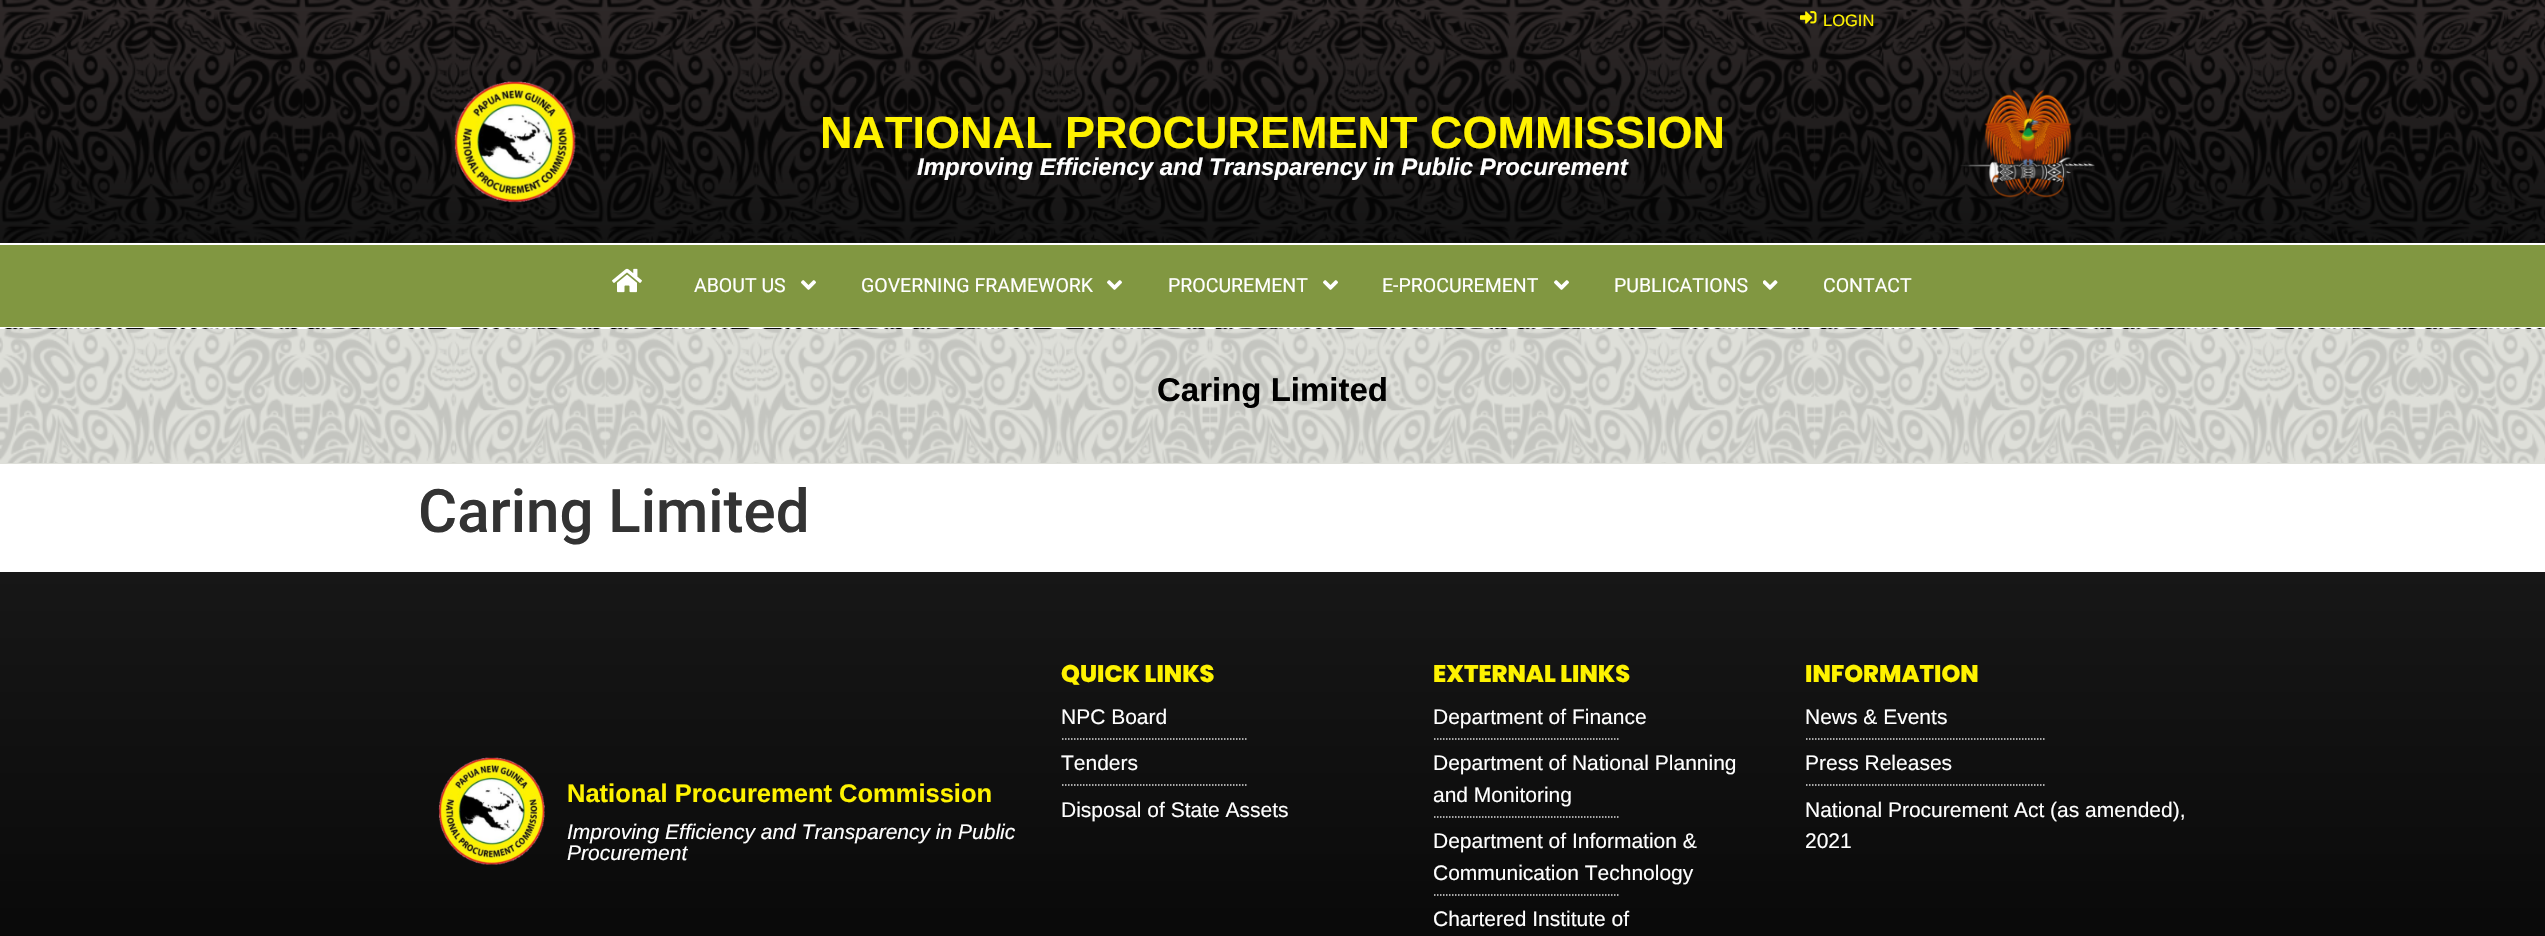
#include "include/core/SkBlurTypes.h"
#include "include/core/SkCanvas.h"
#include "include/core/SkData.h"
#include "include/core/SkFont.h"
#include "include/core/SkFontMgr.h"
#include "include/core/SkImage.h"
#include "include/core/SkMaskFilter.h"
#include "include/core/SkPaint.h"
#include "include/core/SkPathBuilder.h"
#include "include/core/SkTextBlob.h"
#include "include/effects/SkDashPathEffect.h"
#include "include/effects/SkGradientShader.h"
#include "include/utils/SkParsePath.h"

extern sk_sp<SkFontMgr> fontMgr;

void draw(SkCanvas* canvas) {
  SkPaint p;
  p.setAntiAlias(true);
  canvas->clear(SK_ColorWHITE);
  p.setColor(SkColorSetRGB(222, 223, 217));
  canvas->drawRect(SkRect::MakeLTRB(0, 329, 2545, 464), p);
  {
    const SkColor colors[] = {SkColorSetRGB(20, 20, 20), SkColorSetRGB(46, 40, 40)};
    const float stops[] = {0, 0.95f};
    const SkPoint ends[] = {{1273, 243}, {1273, -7.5f}};
    p.setShader(SkGradientShader::MakeLinear(ends, colors, stops, 2, SkTileMode::kClamp));
    p.setAlpha(255);
  }
  canvas->drawRect(SkRect::MakeLTRB(0, 0, 2545, 243), p);
  canvas->drawImageRect(SkImages::DeferredFromEncodedData(SkData::MakeFromFileName("images/1.png")), SkRect::MakeLTRB(0, 0, 2545, 243), SkSamplingOptions());
  canvas->drawImageRect(SkImages::DeferredFromEncodedData(SkData::MakeFromFileName("images/2.png")), SkRect::MakeLTRB(1800, 11, 1817, 24), SkSamplingOptions());
  canvas->drawImageRect(SkImages::DeferredFromEncodedData(SkData::MakeFromFileName("images/3.png")), SkRect::MakeLTRB(454, 81, 576, 203), SkSamplingOptions());
  canvas->drawImageRect(SkImages::DeferredFromEncodedData(SkData::MakeFromFileName("images/4.png")), SkRect::MakeLTRB(1960, 89, 2095, 198), SkSamplingOptions());
  p.setShader(nullptr);
  p.setColor(SkColorSetRGB(129, 151, 65));
  canvas->drawRect(SkRect::MakeLTRB(0, 245, 2545, 327), p);
  canvas->drawImageRect(SkImages::DeferredFromEncodedData(SkData::MakeFromFileName("images/5.png")), SkRect::MakeLTRB(612, 268, 642, 293), SkSamplingOptions());
  canvas->drawImageRect(SkImages::DeferredFromEncodedData(SkData::MakeFromFileName("images/6.png")), SkRect::MakeLTRB(801, 280, 816, 290), SkSamplingOptions());
  canvas->drawImageRect(SkImages::DeferredFromEncodedData(SkData::MakeFromFileName("images/6.png")), SkRect::MakeLTRB(1107, 280, 1122, 290), SkSamplingOptions());
  canvas->drawImageRect(SkImages::DeferredFromEncodedData(SkData::MakeFromFileName("images/6.png")), SkRect::MakeLTRB(1323, 280, 1338, 290), SkSamplingOptions());
  canvas->drawImageRect(SkImages::DeferredFromEncodedData(SkData::MakeFromFileName("images/6.png")), SkRect::MakeLTRB(1554, 280, 1569, 290), SkSamplingOptions());
  canvas->drawImageRect(SkImages::DeferredFromEncodedData(SkData::MakeFromFileName("images/7.png")), SkRect::MakeLTRB(1763, 280, 1778, 290), SkSamplingOptions());
  canvas->drawImageRect(SkImages::DeferredFromEncodedData(SkData::MakeFromFileName("images/8.png")), SkRect::MakeLTRB(0, 328, 2545, 463), SkSamplingOptions());
  {
    const SkColor colors[] = {SkColorSetRGB(23, 23, 23), SkColorSetRGB(5, 5, 5)};
    const float stops[] = {0, 1};
    const SkPoint ends[] = {{1273, 571}, {1273, 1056}};
    p.setShader(SkGradientShader::MakeLinear(ends, colors, stops, 2, SkTileMode::kClamp));
    p.setAlpha(255);
  }
  canvas->drawRect(SkRect::MakeLTRB(0, 572, 2545, 936), p);
  canvas->drawImageRect(SkImages::DeferredFromEncodedData(SkData::MakeFromFileName("images/9.png")), SkRect::MakeLTRB(438, 757, 545, 865), SkSamplingOptions());
  p.setStyle(SkPaint::kStroke_Style);
  p.setStrokeWidth(1.5f);
  p.setShader(nullptr);
  p.setColor(SkColorSetRGB(221, 221, 221));
  p.setPathEffect(SkDashPathEffect::Make({{1.5f, 1.5f}}, 0));
  canvas->drawPath(SkPathBuilder().moveTo(1062, 739).lineTo(1248, 739).detach(), p);
  p.setPathEffect(nullptr);
  p.setPathEffect(SkDashPathEffect::Make({{1.5f, 1.5f}}, 0));
  canvas->drawPath(SkPathBuilder().moveTo(1062, 785).lineTo(1248, 785).detach(), p);
  p.setPathEffect(nullptr);
  p.setPathEffect(SkDashPathEffect::Make({{1.5f, 1.5f}}, 0));
  canvas->drawPath(SkPathBuilder().moveTo(1434, 739).lineTo(1620, 739).detach(), p);
  p.setPathEffect(nullptr);
  p.setPathEffect(SkDashPathEffect::Make({{1.5f, 1.5f}}, 0));
  canvas->drawPath(SkPathBuilder().moveTo(1434, 817).lineTo(1620, 817).detach(), p);
  p.setPathEffect(nullptr);
  p.setPathEffect(SkDashPathEffect::Make({{1.5f, 1.5f}}, 0));
  canvas->drawPath(SkPathBuilder().moveTo(1434, 895).lineTo(1620, 895).detach(), p);
  p.setPathEffect(nullptr);
  p.setPathEffect(SkDashPathEffect::Make({{1.5f, 1.5f}}, 0));
  canvas->drawPath(SkPathBuilder().moveTo(1806, 739).lineTo(2044.5f, 739).detach(), p);
  p.setPathEffect(nullptr);
  p.setPathEffect(SkDashPathEffect::Make({{1.5f, 1.5f}}, 0));
  canvas->drawPath(SkPathBuilder().moveTo(1806, 785).lineTo(2044.5f, 785).detach(), p);
  p.setPathEffect(nullptr);
  SkFont font1(fontMgr->matchFamilyStyle("Liberation Sans", SkFontStyle::Normal()), 16.5f);
  font1.setSubpixel(true);
  p.setStyle(SkPaint::kFill_Style);
  p.setColor(SkColorSetRGB(254, 242, 0));
  canvas->drawString("LOGIN", 1823, 26, font1, p);
  SkFont font2(fontMgr->matchFamilyStyle("Liberation Sans", SkFontStyle::Bold()), 45);
  font2.setSubpixel(true);
  canvas->drawString("NATIONAL PROCUREMENT COMMISSION", 820, 148, font2, p);
  SkFont font3(fontMgr->matchFamilyStyle("Liberation Sans", SkFontStyle::BoldItalic()), 24);
  font3.setSubpixel(true);
  p.setColor(SK_ColorWHITE);
  canvas->drawString("Improving Efficiency and Transparency in Public Procurement", 917, 175, font3, p);
  SkFont font4(fontMgr->matchFamilyStyle("Roboto", SkFontStyle::Normal()), 19.5f);
  font4.setSubpixel(true);
  canvas->drawString("ABOUT US", 694, 292, font4, p);
  canvas->drawString("GOVERNING FRAMEWORK", 861, 292, font4, p);
  canvas->drawString("PROCUREMENT", 1168, 292, font4, p);
  canvas->drawString("E-PROCUREMENT", 1382, 292, font4, p);
  canvas->drawString("PUBLICATIONS", 1614, 292, font4, p);
  canvas->drawString("CONTACT", 1823, 292, font4, p);
  SkFont font5(fontMgr->matchFamilyStyle("Liberation Sans", SkFontStyle::Bold()), 33);
  font5.setSubpixel(true);
  p.setColor(SK_ColorBLACK);
  canvas->drawString("Caring Limited", 1157, 401, font5, p);
  SkFont font6(fontMgr->matchFamilyStyle("Roboto", SkFontStyle(500, SkFontStyle::kNormal_Width, SkFontStyle::kUpright_Slant)), 60);
  font6.setSubpixel(true);
  p.setColor(SkColorSetRGB(51, 51, 51));
  canvas->drawString("Caring Limited", 418, 532, font6, p);
  SkFont font7(fontMgr->matchFamilyStyle("Liberation Sans", SkFontStyle::Bold()), 25.5f);
  font7.setSubpixel(true);
  p.setColor(SkColorSetRGB(254, 242, 0));
  canvas->drawString("National Procurement Commission", 567, 802, font7, p);
  SkFont font8(fontMgr->matchFamilyStyle("Liberation Sans", SkFontStyle::Italic()), 21);
  font8.setSubpixel(true);
  p.setColor(SK_ColorWHITE);
  canvas->drawString("Improving Efficiency and Transparency in Public", 567, 839, font8, p);
  canvas->drawString("Procurement", 567, 860, font8, p);
  SkFont font9(fontMgr->matchFamilyStyle("Poppins", SkFontStyle(800, SkFontStyle::kNormal_Width, SkFontStyle::kUpright_Slant)), 24);
  font9.setSubpixel(true);
  p.setColor(SkColorSetRGB(254, 242, 0));
  canvas->drawString("QUICK LINKS", 1061, 682, font9, p);
  SkFont font10(fontMgr->matchFamilyStyle("Liberation Sans", SkFontStyle::Normal()), 21);
  font10.setSubpixel(true);
  p.setColor(SK_ColorWHITE);
  canvas->drawString("NPC Board", 1061, 724, font10, p);
  canvas->drawString("Tenders", 1061, 770, font10, p);
  canvas->drawString("Disposal of State Assets", 1061, 817, font10, p);
  p.setColor(SkColorSetRGB(254, 242, 0));
  canvas->drawString("EXTERNAL LINKS", 1433, 682, font9, p);
  p.setColor(SK_ColorWHITE);
  canvas->drawString("Department of Finance", 1433, 724, font10, p);
  canvas->drawString("Department of National Planning", 1433, 770, font10, p);
  canvas->drawString("and Monitoring", 1433, 802, font10, p);
  canvas->drawString("Department of Information &", 1433, 848, font10, p);
  canvas->drawString("Communication Technology", 1433, 880, font10, p);
  canvas->drawString("Chartered Institute of", 1433, 926, font10, p);
  p.setColor(SkColorSetRGB(254, 242, 0));
  canvas->drawString("INFORMATION", 1805, 682, font9, p);
  p.setColor(SK_ColorWHITE);
  canvas->drawString("News & Events", 1805, 724, font10, p);
  canvas->drawString("Press Releases", 1805, 770, font10, p);
  canvas->drawString("National Procurement Act (as amended),", 1805, 817, font10, p);
  canvas->drawString("2021", 1805, 848, font10, p);
}
